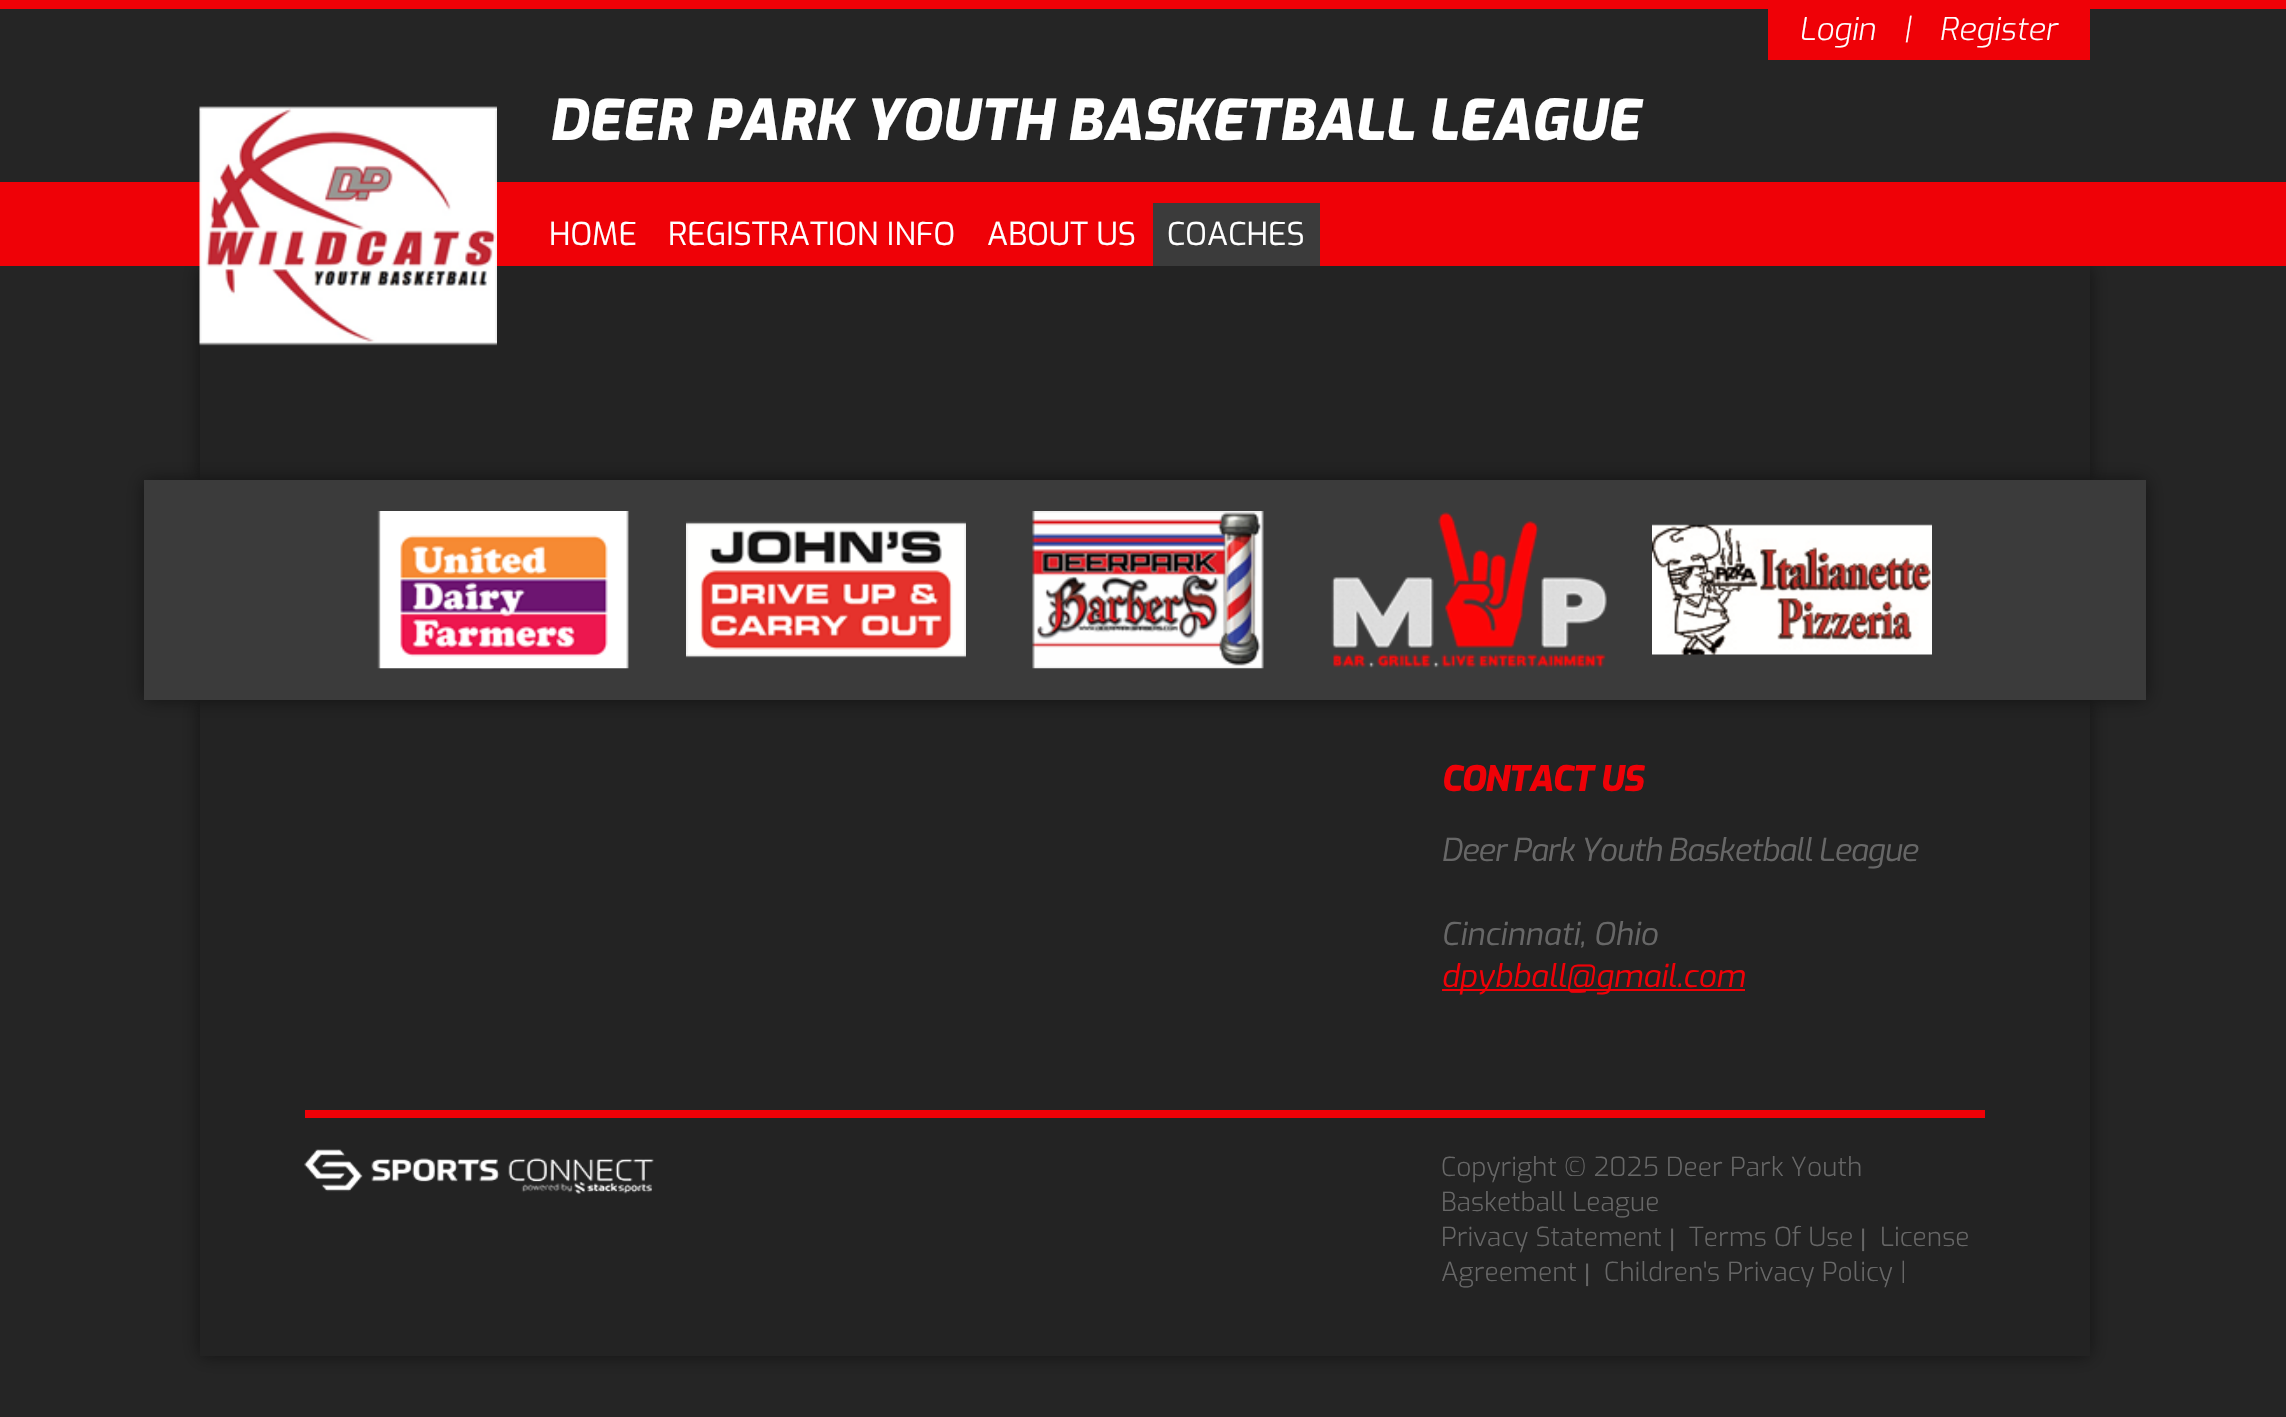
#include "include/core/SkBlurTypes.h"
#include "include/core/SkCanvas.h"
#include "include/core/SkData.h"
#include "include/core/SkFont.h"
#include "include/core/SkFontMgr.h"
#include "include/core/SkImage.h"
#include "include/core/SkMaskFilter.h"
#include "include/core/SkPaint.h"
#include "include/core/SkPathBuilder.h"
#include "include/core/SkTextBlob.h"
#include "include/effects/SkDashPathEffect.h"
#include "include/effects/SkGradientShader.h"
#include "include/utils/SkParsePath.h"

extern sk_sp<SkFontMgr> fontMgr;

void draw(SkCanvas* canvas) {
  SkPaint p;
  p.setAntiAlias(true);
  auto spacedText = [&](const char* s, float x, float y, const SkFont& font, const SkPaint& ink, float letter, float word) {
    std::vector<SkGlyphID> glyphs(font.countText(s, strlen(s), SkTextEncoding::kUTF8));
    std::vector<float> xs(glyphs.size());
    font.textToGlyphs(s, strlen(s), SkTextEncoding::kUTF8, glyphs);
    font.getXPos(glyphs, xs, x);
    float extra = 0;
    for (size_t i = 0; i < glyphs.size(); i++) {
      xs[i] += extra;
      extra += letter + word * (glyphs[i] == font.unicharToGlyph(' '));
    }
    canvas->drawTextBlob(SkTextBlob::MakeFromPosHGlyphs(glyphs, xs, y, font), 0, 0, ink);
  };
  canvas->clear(SkColorSetRGB(37, 37, 37));
  p.setColor(SkColorSetRGB(239, 1, 7));
  canvas->drawRect(SkRect::MakeLTRB(0, 0, 2286, 9), p);
  canvas->drawRect(SkRect::MakeLTRB(1768, 9, 2090, 60), p);
  p.setColor(SkColorSetARGB(128, 0, 0, 0));
  p.setMaskFilter(SkMaskFilter::MakeBlur(kNormal_SkBlurStyle, 9));
  canvas->drawRect(SkRect::MakeLTRB(200, 266, 2090, 480), p);
  p.setMaskFilter(nullptr);
  p.setColor(SkColorSetRGB(239, 1, 7));
  canvas->drawRect(SkRect::MakeLTRB(0, 182, 2286, 266), p);
  p.setColor(SkColorSetRGB(35, 35, 35));
  canvas->drawRect(SkRect::MakeLTRB(200, 266, 2090, 480), p);
  canvas->drawImageRect(SkImages::DeferredFromEncodedData(SkData::MakeFromFileName("images/1.png")), SkRect::MakeLTRB(199, 106, 497, 346), SkSamplingOptions());
  p.setColor(SkColorSetRGB(59, 59, 59));
  canvas->drawRect(SkRect::MakeLTRB(1153, 203, 1320, 266), p);
  p.setColor(SkColorSetARGB(128, 0, 0, 0));
  p.setMaskFilter(SkMaskFilter::MakeBlur(kNormal_SkBlurStyle, 9));
  canvas->drawRect(SkRect::MakeLTRB(200, 700, 2090, 1356), p);
  p.setMaskFilter(nullptr);
  p.setColor(SkColorSetRGB(35, 35, 35));
  canvas->drawRect(SkRect::MakeLTRB(200, 700, 2090, 1356), p);
  p.setColor(SkColorSetARGB(128, 0, 0, 0));
  p.setMaskFilter(SkMaskFilter::MakeBlur(kNormal_SkBlurStyle, 9));
  canvas->drawRect(SkRect::MakeLTRB(144, 480, 2146, 700), p);
  p.setMaskFilter(nullptr);
  p.setColor(SkColorSetRGB(59, 59, 59));
  canvas->drawRect(SkRect::MakeLTRB(144, 480, 2146, 700), p);
  canvas->drawImageRect(SkImages::DeferredFromEncodedData(SkData::MakeFromFileName("images/2.png")), SkRect::MakeLTRB(377, 511, 629, 669), SkSamplingOptions());
  canvas->drawImageRect(SkImages::DeferredFromEncodedData(SkData::MakeFromFileName("images/3.png")), SkRect::MakeLTRB(686, 521, 966, 658), SkSamplingOptions());
  canvas->drawImageRect(SkImages::DeferredFromEncodedData(SkData::MakeFromFileName("images/4.png")), SkRect::MakeLTRB(1032, 511, 1264, 669), SkSamplingOptions());
  canvas->drawImageRect(SkImages::DeferredFromEncodedData(SkData::MakeFromFileName("images/5.png")), SkRect::MakeLTRB(1331, 512, 1607, 668), SkSamplingOptions());
  canvas->drawImageRect(SkImages::DeferredFromEncodedData(SkData::MakeFromFileName("images/6.png")), SkRect::MakeLTRB(1652, 524, 1932, 655), SkSamplingOptions());
  p.setColor(SkColorSetRGB(239, 1, 7));
  canvas->drawRect(SkRect::MakeLTRB(1442, 989, 1745, 991), p);
  canvas->drawRect(SkRect::MakeLTRB(305, 1110, 1985, 1118), p);
  canvas->drawImageRect(SkImages::DeferredFromEncodedData(SkData::MakeFromFileName("images/7.png")), SkRect::MakeLTRB(304, 1149, 654, 1194), SkSamplingOptions());
  SkFont font1(fontMgr->matchFamilyStyle("Exo", SkFontStyle(300, SkFontStyle::kNormal_Width, SkFontStyle::kItalic_Slant)), 31.5f);
  font1.setSubpixel(true);
  p.setColor(SK_ColorWHITE);
  canvas->drawString("Login", 1799, 40, font1, p);
  canvas->drawString("|", 1903, 40, font1, p);
  canvas->drawString("Register", 1939, 40, font1, p);
  SkFont font2(fontMgr->matchFamilyStyle("Exo", SkFontStyle(800, SkFontStyle::kNormal_Width, SkFontStyle::kItalic_Slant)), 56);
  font2.setSubpixel(true);
  canvas->drawString("DEER PARK YOUTH BASKETBALL LEAGUE", 549, 140, font2, p);
  SkFont font3(fontMgr->matchFamilyStyle("Exo", SkFontStyle::Normal()), 31.5f);
  font3.setSubpixel(true);
  canvas->drawString("HOME", 549, 245, font3, p);
  canvas->drawString("REGISTRATION INFO", 668, 245, font3, p);
  canvas->drawString("ABOUT US", 987, 245, font3, p);
  canvas->drawString("COACHES", 1167, 245, font3, p);
  SkFont font4(fontMgr->matchFamilyStyle("Exo", SkFontStyle(800, SkFontStyle::kNormal_Width, SkFontStyle::kItalic_Slant)), 35);
  font4.setSubpixel(true);
  p.setColor(SkColorSetRGB(239, 1, 7));
  spacedText("CONTACT US", 1441, 791, font4, p, -1, 0);
  SkFont font5(fontMgr->matchFamilyStyle("Exo", SkFontStyle::Italic()), 31.5f);
  font5.setSubpixel(true);
  p.setColor(SkColorSetRGB(103, 103, 103));
  spacedText("Deer Park Youth Basketball League", 1441, 861, font5, p, -0.95f, 0);
  canvas->drawString("Cincinnati, Ohio", 1441, 945, font5, p);
  p.setColor(SkColorSetRGB(239, 1, 7));
  canvas->drawString("dpybball@gmail.com", 1441, 987, font5, p);
  SkFont font6(fontMgr->matchFamilyStyle("Exo", SkFontStyle(300, SkFontStyle::kNormal_Width, SkFontStyle::kUpright_Slant)), 26.25f);
  font6.setSubpixel(true);
  p.setColor(SkColorSetRGB(103, 103, 103));
  canvas->drawString("Copyright © 2025 Deer Park Youth", 1441, 1176, font6, p);
  canvas->drawString("Basketball League", 1441, 1211, font6, p);
  canvas->drawString("Privacy Statement", 1441, 1246, font6, p);
  SkFont font7(fontMgr->matchFamilyStyle("Liberation Sans", SkFontStyle::Normal()), 24);
  font7.setSubpixel(true);
  canvas->drawString("|", 1669, 1246, font7, p);
  canvas->drawString("Terms Of Use", 1689, 1246, font6, p);
  canvas->drawString("|", 1860, 1246, font7, p);
  canvas->drawString("License", 1880, 1246, font6, p);
  canvas->drawString("Agreement", 1441, 1281, font6, p);
  canvas->drawString("|", 1584, 1281, font7, p);
  canvas->drawString("Children's Privacy Policy |", 1604, 1281, font6, p);
}
